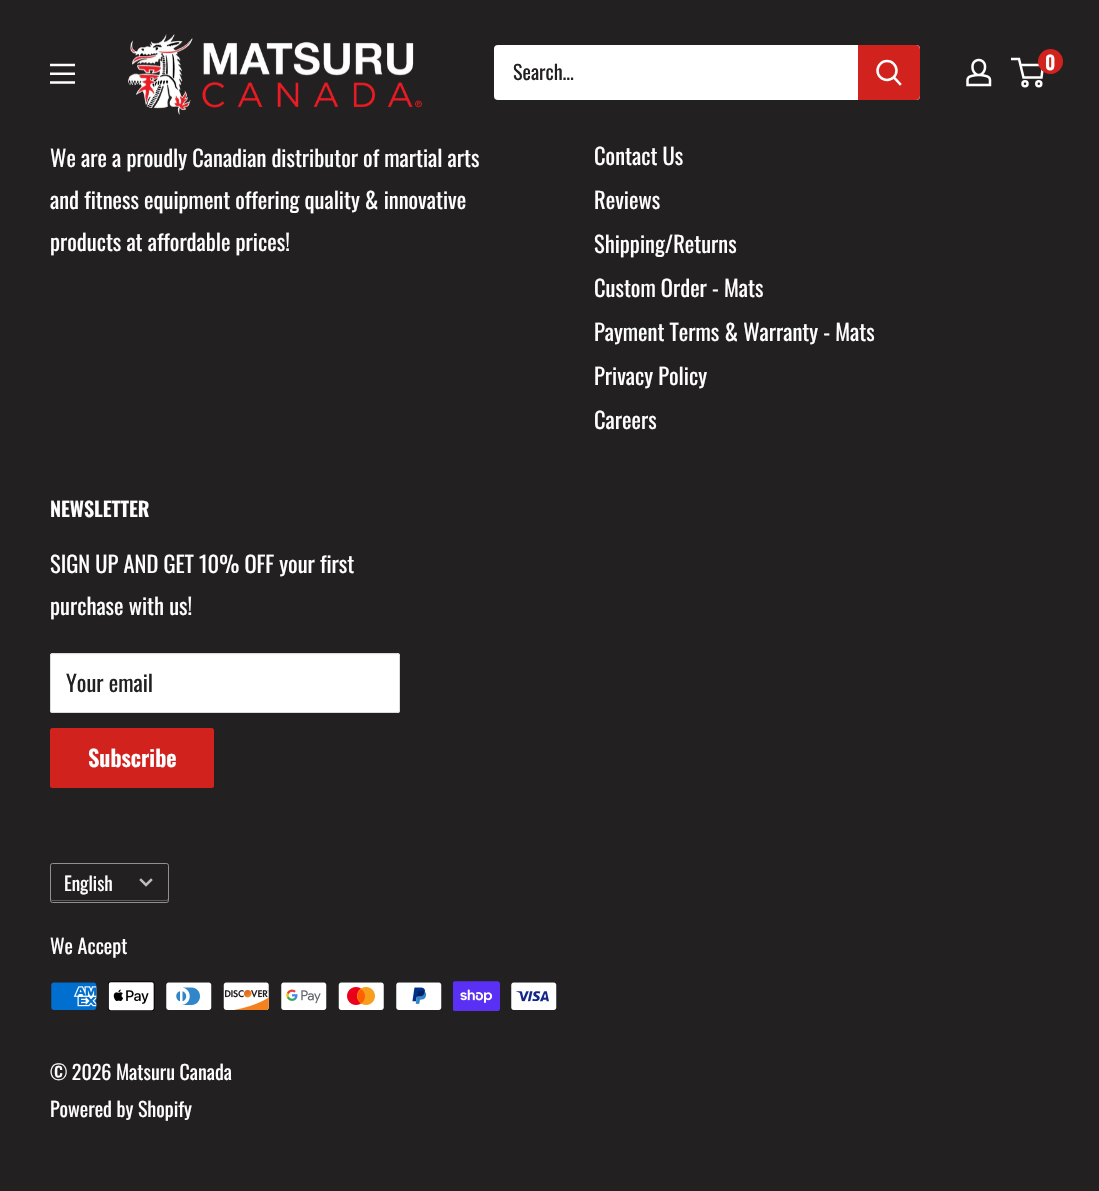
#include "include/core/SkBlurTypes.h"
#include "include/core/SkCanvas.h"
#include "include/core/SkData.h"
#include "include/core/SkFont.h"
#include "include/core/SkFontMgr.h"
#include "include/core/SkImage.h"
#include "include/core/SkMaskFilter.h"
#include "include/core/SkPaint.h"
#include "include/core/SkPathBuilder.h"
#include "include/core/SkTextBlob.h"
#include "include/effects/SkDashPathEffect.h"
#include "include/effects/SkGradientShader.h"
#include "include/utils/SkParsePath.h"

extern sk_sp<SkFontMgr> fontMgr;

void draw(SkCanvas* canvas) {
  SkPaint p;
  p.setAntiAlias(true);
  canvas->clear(SkColorSetRGB(34, 32, 33));
  canvas->drawImageRect(SkImages::DeferredFromEncodedData(SkData::MakeFromFileName("images/1.png")), SkRect::MakeLTRB(50, 63, 75, 84), SkSamplingOptions());
  canvas->drawImageRect(SkImages::DeferredFromEncodedData(SkData::MakeFromFileName("images/2.png")), SkRect::MakeLTRB(128, 34, 422, 115), SkSamplingOptions());
  p.setColor(SK_ColorWHITE);
  canvas->drawRoundRect(SkRect::MakeLTRB(494, 45, 920, 100), 4, 4, p);
  p.setColor(SkColorSetRGB(210, 34, 30));
  canvas->drawPath(SkPathBuilder().moveTo(858, 45).lineTo(916, 45).cubicTo(918, 45, 920, 47, 920, 49).lineTo(920, 96).cubicTo(920, 98, 918, 100, 916, 100).lineTo(858, 100).close().detach(), p);
  p.setStyle(SkPaint::kStroke_Style);
  p.setStrokeWidth(2.5f);
  p.setStrokeCap(SkPaint::kSquare_Cap);
  p.setColor(SK_ColorWHITE);
  canvas->drawPath(SkPathBuilder().moveTo(900, 84).lineTo(894, 77.5f).detach(), p);
  p.setStrokeCap(SkPaint::kButt_Cap);
  canvas->drawCircle(887, 70.5f, 9.5f, p);
  canvas->drawImageRect(SkImages::DeferredFromEncodedData(SkData::MakeFromFileName("images/3.png")), SkRect::MakeLTRB(966, 58, 992, 87), SkSamplingOptions());
  canvas->drawCircle(1025, 83.8f, 2.5f, p);
  canvas->drawCircle(1038.8f, 83.8f, 2.5f, p);
  canvas->drawPath(SkPathBuilder().moveTo(1020.5f, 65).lineTo(1043, 65).lineTo(1041.5f, 77.5f).lineTo(1023.5f, 77.5f).lineTo(1019, 59).lineTo(1011, 59).detach(), p);
  p.setStyle(SkPaint::kFill_Style);
  p.setColor(SkColorSetRGB(210, 34, 30));
  canvas->drawCircle(1050.5f, 61.5f, 12.5f, p);
  p.setColor(SK_ColorWHITE);
  canvas->drawRoundRect(SkRect::MakeLTRB(50, 653, 400, 713), 2.5f, 2.5f, p);
  p.setColor(SkColorSetRGB(249, 249, 249));
  canvas->drawPath(SkPathBuilder().moveTo(52, 655).lineTo(398, 655).lineTo(399, 656).lineTo(399, 655).lineTo(398, 654).lineTo(51, 654).lineTo(51, 656).close().detach(), p);
  p.setStyle(SkPaint::kStroke_Style);
  p.setStrokeWidth(1);
  p.setColor(SkColorSetRGB(219, 219, 219));
  canvas->drawRoundRect(SkRect::MakeLTRB(50.5f, 653.5f, 399.5f, 712.5f), 2, 2, p);
  p.setStyle(SkPaint::kFill_Style);
  p.setColor(SkColorSetRGB(210, 34, 30));
  canvas->drawRoundRect(SkRect::MakeLTRB(50, 728, 214, 788), 2.5f, 2.5f, p);
  p.setColor(SkColorSetRGB(93, 92, 93));
  canvas->drawPath(SkPathBuilder().moveTo(51, 899).cubicTo(51, 900, 51, 901, 52, 901).lineTo(167, 901).cubicTo(168, 901, 168, 900, 168, 899).lineTo(166, 900).lineTo(52, 900).close().detach(), p);
  p.setStyle(SkPaint::kStroke_Style);
  p.setColor(SkColorSetRGB(145, 144, 144));
  canvas->drawRoundRect(SkRect::MakeLTRB(50.5f, 863.5f, 168.5f, 902.5f), 2, 2, p);
  p.setStrokeWidth(2.5f);
  p.setStrokeCap(SkPaint::kSquare_Cap);
  p.setColor(SkColorSetRGB(189, 188, 188));
  canvas->drawPath(SkPathBuilder().moveTo(151, 880).lineTo(146, 885).lineTo(141, 880).detach(), p);
  canvas->drawImageRect(SkImages::DeferredFromEncodedData(SkData::MakeFromFileName("images/4.png")), SkRect::MakeLTRB(51, 982, 97, 1010), SkSamplingOptions());
  canvas->drawImageRect(SkImages::DeferredFromEncodedData(SkData::MakeFromFileName("images/5.png")), SkRect::MakeLTRB(108, 981, 155, 1011), SkSamplingOptions());
  canvas->drawImageRect(SkImages::DeferredFromEncodedData(SkData::MakeFromFileName("images/6.png")), SkRect::MakeLTRB(166, 982, 212, 1010), SkSamplingOptions());
  canvas->drawImageRect(SkImages::DeferredFromEncodedData(SkData::MakeFromFileName("images/7.png")), SkRect::MakeLTRB(223, 982, 269, 1010), SkSamplingOptions());
  canvas->drawImageRect(SkImages::DeferredFromEncodedData(SkData::MakeFromFileName("images/8.png")), SkRect::MakeLTRB(281, 982, 327, 1010), SkSamplingOptions());
  canvas->drawImageRect(SkImages::DeferredFromEncodedData(SkData::MakeFromFileName("images/9.png")), SkRect::MakeLTRB(338, 982, 384, 1010), SkSamplingOptions());
  canvas->drawImageRect(SkImages::DeferredFromEncodedData(SkData::MakeFromFileName("images/10.png")), SkRect::MakeLTRB(396, 982, 442, 1010), SkSamplingOptions());
  canvas->drawImageRect(SkImages::DeferredFromEncodedData(SkData::MakeFromFileName("images/11.png")), SkRect::MakeLTRB(453, 981, 500, 1011), SkSamplingOptions());
  canvas->drawImageRect(SkImages::DeferredFromEncodedData(SkData::MakeFromFileName("images/12.png")), SkRect::MakeLTRB(511, 982, 557, 1010), SkSamplingOptions());
  SkFont font1(fontMgr->matchFamilyStyle("Oswald", SkFontStyle::Normal()), 20);
  font1.setSubpixel(true);
  p.setStyle(SkPaint::kFill_Style);
  p.setColor(SkColorSetRGB(34, 32, 33));
  canvas->drawString("Search...", 513, 80, font1, p);
  SkFont font2(fontMgr->matchFamilyStyle("Oswald", SkFontStyle(600, SkFontStyle::kNormal_Width, SkFontStyle::kUpright_Slant)), 19);
  font2.setSubpixel(true);
  p.setColor(SK_ColorWHITE);
  canvas->drawString("0", 1045, 70, font2, p);
  SkFont font3(fontMgr->matchFamilyStyle("Oswald", SkFontStyle::Normal()), 22.5f);
  font3.setSubpixel(true);
  canvas->drawString("We are a proudly Canadian distributor of martial arts", 50, 167, font3, p);
  canvas->drawString("and fitness equipment offering quality & innovative", 50, 209, font3, p);
  canvas->drawString("products at affordable prices!", 50, 251, font3, p);
  canvas->drawString("Contact Us", 594, 165, font3, p);
  canvas->drawString("Reviews", 594, 209, font3, p);
  canvas->drawString("Shipping/Returns", 594, 253, font3, p);
  canvas->drawString("Custom Order - Mats", 594, 297, font3, p);
  canvas->drawString("Payment Terms & Warranty - Mats", 594, 341, font3, p);
  canvas->drawString("Privacy Policy", 594, 385, font3, p);
  canvas->drawString("Careers", 594, 429, font3, p);
  SkFont font4(fontMgr->matchFamilyStyle("Oswald", SkFontStyle(600, SkFontStyle::kNormal_Width, SkFontStyle::kUpright_Slant)), 20);
  font4.setSubpixel(true);
  canvas->drawString("NEWSLETTER", 50, 517, font4, p);
  canvas->drawString("SIGN UP AND GET 10% OFF your first", 50, 573, font3, p);
  canvas->drawString("purchase with us!", 50, 615, font3, p);
  p.setColor(SkColorSetRGB(34, 32, 33));
  canvas->drawString("Your email", 66, 692, font3, p);
  SkFont font5(fontMgr->matchFamilyStyle("Oswald", SkFontStyle(600, SkFontStyle::kNormal_Width, SkFontStyle::kUpright_Slant)), 22.5f);
  font5.setSubpixel(true);
  p.setColor(SK_ColorWHITE);
  canvas->drawString("Subscribe", 88, 767, font5, p);
  SkFont font6(fontMgr->matchFamilyStyle("Oswald", SkFontStyle::Normal()), 19);
  font6.setSubpixel(true);
  canvas->drawString("English", 64, 891, font6, p);
  canvas->drawString("We Accept", 50, 954, font1, p);
  canvas->drawString("© 2026 Matsuru Canada", 50, 1080, font1, p);
  canvas->drawString("Powered by Shopify", 50, 1117, font1, p);
}
